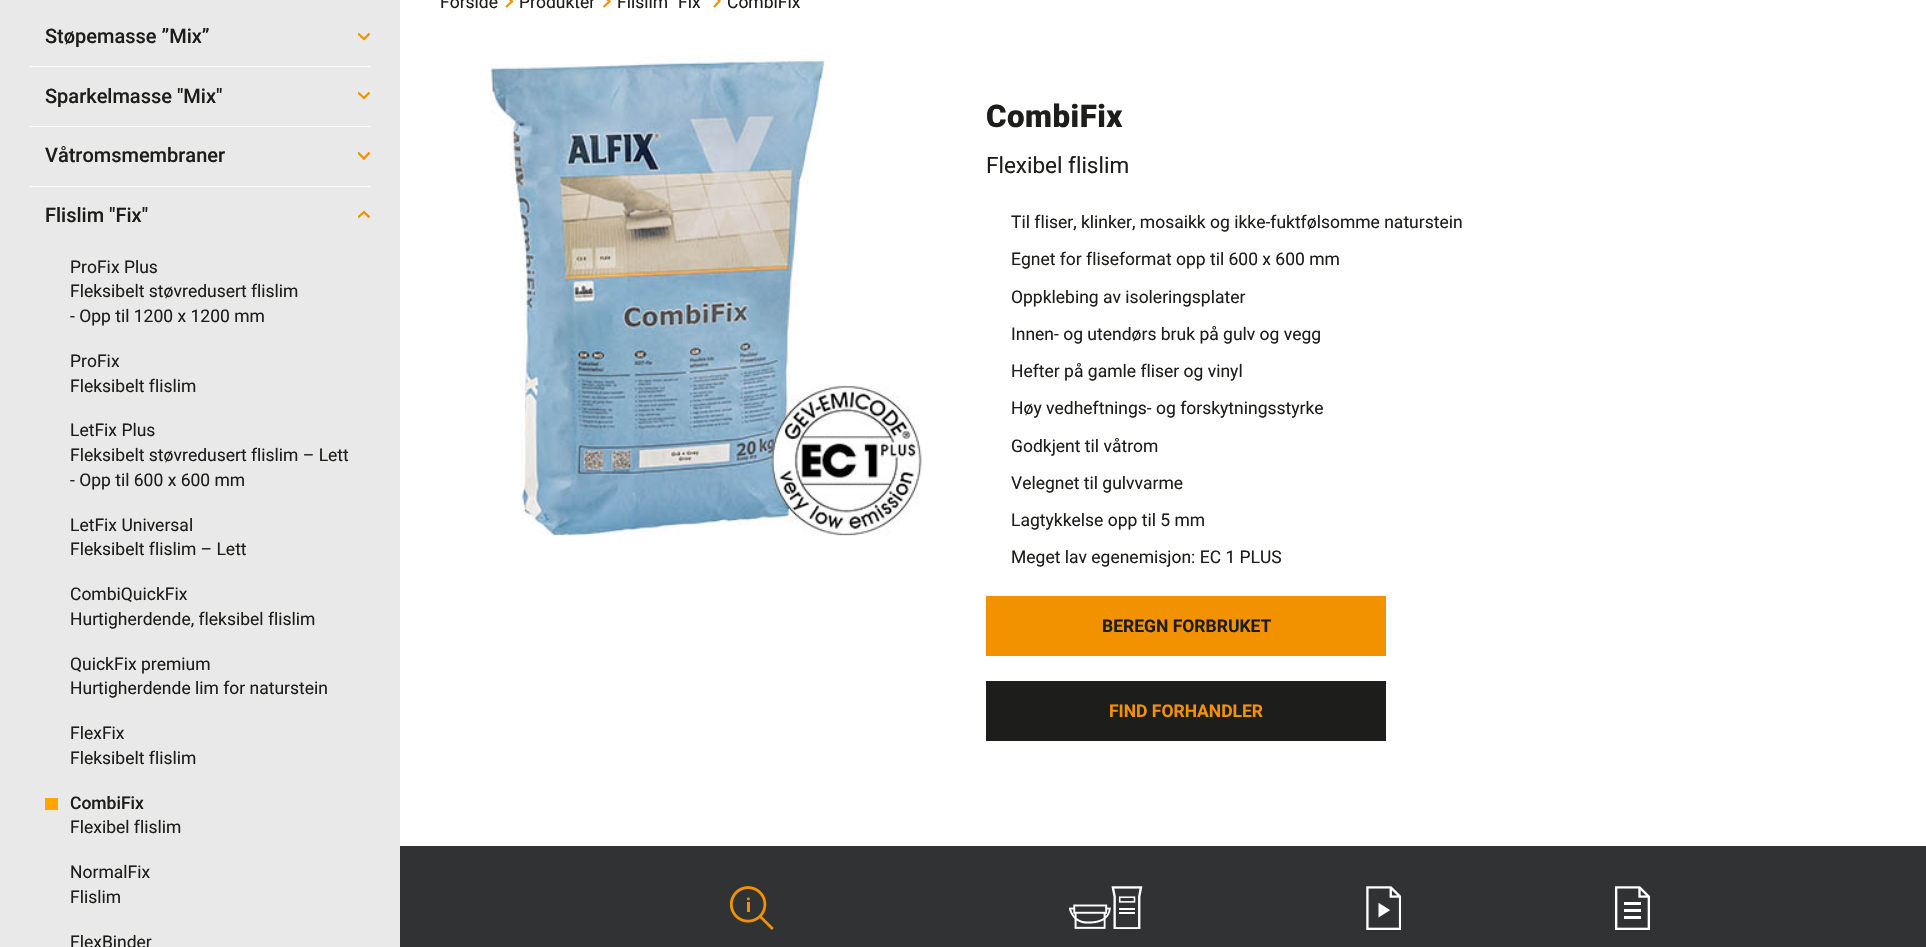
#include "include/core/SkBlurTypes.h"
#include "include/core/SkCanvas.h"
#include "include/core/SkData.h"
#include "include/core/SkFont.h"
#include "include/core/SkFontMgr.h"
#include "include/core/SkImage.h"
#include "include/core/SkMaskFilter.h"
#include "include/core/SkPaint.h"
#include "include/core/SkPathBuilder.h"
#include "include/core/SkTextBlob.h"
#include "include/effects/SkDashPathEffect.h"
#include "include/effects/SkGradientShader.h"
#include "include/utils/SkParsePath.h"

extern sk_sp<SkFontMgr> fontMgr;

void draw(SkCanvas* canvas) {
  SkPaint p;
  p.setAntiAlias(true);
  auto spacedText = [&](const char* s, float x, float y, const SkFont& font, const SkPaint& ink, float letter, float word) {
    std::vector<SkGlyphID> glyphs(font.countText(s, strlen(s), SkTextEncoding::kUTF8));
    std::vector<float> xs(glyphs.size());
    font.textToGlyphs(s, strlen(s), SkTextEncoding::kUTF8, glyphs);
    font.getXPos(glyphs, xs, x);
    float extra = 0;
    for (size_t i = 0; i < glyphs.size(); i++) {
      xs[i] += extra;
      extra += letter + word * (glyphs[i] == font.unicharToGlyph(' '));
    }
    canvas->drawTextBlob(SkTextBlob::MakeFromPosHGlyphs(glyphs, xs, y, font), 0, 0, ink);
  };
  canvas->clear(SK_ColorWHITE);
  p.setColor(SkColorSetRGB(233, 233, 233));
  canvas->drawRect(SkRect::MakeLTRB(0, 0, 400, 947), p);
  p.setColor(SK_ColorWHITE);
  canvas->drawRect(SkRect::MakeLTRB(30, 66, 370, 67), p);
  canvas->save();
  canvas->clipRect(SkRect::MakeLTRB(358, 30, 370, 43));
  p.setStyle(SkPaint::kStroke_Style);
  p.setStrokeWidth(2.3f);
  p.setColor(SkColorSetRGB(243, 146, 0));
  canvas->drawPath(SkPathBuilder().moveTo(369.5f, 33.5f).lineTo(364, 39).lineTo(358, 33.5f).detach(), p);
  canvas->restore();
  p.setStyle(SkPaint::kFill_Style);
  p.setColor(SK_ColorWHITE);
  canvas->drawRect(SkRect::MakeLTRB(30, 126, 370, 127), p);
  canvas->save();
  canvas->clipRect(SkRect::MakeLTRB(358, 90, 370, 103));
  p.setStyle(SkPaint::kStroke_Style);
  p.setColor(SkColorSetRGB(243, 146, 0));
  canvas->drawPath(SkPathBuilder().moveTo(369.5f, 92.5f).lineTo(364, 98).lineTo(358, 92.5f).detach(), p);
  canvas->restore();
  p.setStyle(SkPaint::kFill_Style);
  p.setColor(SK_ColorWHITE);
  canvas->drawRect(SkRect::MakeLTRB(30, 186, 370, 187), p);
  canvas->save();
  canvas->clipRect(SkRect::MakeLTRB(358, 149, 370, 161));
  p.setStyle(SkPaint::kStroke_Style);
  p.setColor(SkColorSetRGB(243, 146, 0));
  canvas->drawPath(SkPathBuilder().moveTo(369.5f, 152.5f).lineTo(364, 158.5f).lineTo(358, 152.5f).detach(), p);
  canvas->restore();
  canvas->save();
  canvas->clipRect(SkRect::MakeLTRB(358, 209, 370, 221));
  canvas->drawPath(SkPathBuilder().moveTo(358, 217.5f).lineTo(364, 212).lineTo(369.5f, 217.5f).detach(), p);
  canvas->restore();
  p.setStyle(SkPaint::kFill_Style);
  p.setColor(SkColorSetRGB(255, 165, 0));
  canvas->drawRect(SkRect::MakeLTRB(45, 798, 58, 810), p);
  p.setStyle(SkPaint::kStroke_Style);
  p.setColor(SkColorSetRGB(243, 146, 0));
  canvas->drawPath(SkPathBuilder().moveTo(506, -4.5f).lineTo(512, 1.5f).lineTo(506, 7).detach(), p);
  canvas->drawPath(SkPathBuilder().moveTo(603.5f, -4.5f).lineTo(609.5f, 1.5f).lineTo(603.5f, 7).detach(), p);
  canvas->drawPath(SkPathBuilder().moveTo(714, -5).lineTo(719.5f, 1).lineTo(714, 7).detach(), p);
  canvas->drawImageRect(SkImages::DeferredFromEncodedData(SkData::MakeFromFileName("images/1.png")), SkRect::MakeLTRB(490, 55, 922, 536), SkSamplingOptions());
  p.setStyle(SkPaint::kFill_Style);
  canvas->drawRect(SkRect::MakeLTRB(986, 596, 1386, 656), p);
  p.setColor(SkColorSetRGB(29, 29, 27));
  canvas->drawRect(SkRect::MakeLTRB(986, 681, 1386, 741), p);
  p.setColor(SkColorSetRGB(49, 50, 52));
  canvas->drawRect(SkRect::MakeLTRB(400, 846, 1926, 947), p);
  canvas->drawImageRect(SkImages::DeferredFromEncodedData(SkData::MakeFromFileName("images/2.png")), SkRect::MakeLTRB(730, 886, 774, 930), SkSamplingOptions());
  canvas->drawImageRect(SkImages::DeferredFromEncodedData(SkData::MakeFromFileName("images/3.png")), SkRect::MakeLTRB(1069, 886, 1143, 929), SkSamplingOptions());
  canvas->drawImageRect(SkImages::DeferredFromEncodedData(SkData::MakeFromFileName("images/4.png")), SkRect::MakeLTRB(1366, 886, 1401, 930), SkSamplingOptions());
  canvas->drawImageRect(SkImages::DeferredFromEncodedData(SkData::MakeFromFileName("images/5.png")), SkRect::MakeLTRB(1615, 886, 1650, 930), SkSamplingOptions());
  SkFont font1(fontMgr->matchFamilyStyle("Roboto", SkFontStyle(500, SkFontStyle::kNormal_Width, SkFontStyle::kUpright_Slant)), 20);
  font1.setSubpixel(true);
  p.setColor(SkColorSetRGB(29, 29, 27));
  canvas->drawString("Støpemasse ”Mix”", 45, 43, font1, p);
  canvas->drawString("Sparkelmasse \"Mix\"", 45, 103, font1, p);
  canvas->drawString("Våtromsmembraner", 45, 162, font1, p);
  canvas->drawString("Flislim \"Fix\"", 45, 222, font1, p);
  SkFont font2(fontMgr->matchFamilyStyle("Roboto", SkFontStyle::Normal()), 17.5f);
  font2.setSubpixel(true);
  canvas->drawString("ProFix Plus", 70, 273, font2, p);
  canvas->drawString("Fleksibelt støvredusert flislim", 70, 297, font2, p);
  canvas->drawString("- Opp til 1200 x 1200 mm", 70, 322, font2, p);
  canvas->drawString("ProFix", 70, 367, font2, p);
  canvas->drawString("Fleksibelt flislim", 70, 392, font2, p);
  canvas->drawString("LetFix Plus", 70, 436, font2, p);
  canvas->drawString("Fleksibelt støvredusert flislim – Lett", 70, 461, font2, p);
  canvas->drawString("- Opp til 600 x 600 mm", 70, 486, font2, p);
  canvas->drawString("LetFix Universal", 70, 531, font2, p);
  canvas->drawString("Fleksibelt flislim – Lett", 70, 555, font2, p);
  canvas->drawString("CombiQuickFix", 70, 600, font2, p);
  canvas->drawString("Hurtigherdende, fleksibel flislim", 70, 625, font2, p);
  canvas->drawString("QuickFix premium", 70, 670, font2, p);
  canvas->drawString("Hurtigherdende lim for naturstein", 70, 694, font2, p);
  canvas->drawString("FlexFix", 70, 739, font2, p);
  canvas->drawString("Fleksibelt flislim", 70, 764, font2, p);
  SkFont font3(fontMgr->matchFamilyStyle("Roboto", SkFontStyle(500, SkFontStyle::kNormal_Width, SkFontStyle::kUpright_Slant)), 17.5f);
  font3.setSubpixel(true);
  canvas->drawString("CombiFix", 70, 809, font3, p);
  canvas->drawString("Flexibel flislim", 70, 833, font2, p);
  canvas->drawString("NormalFix", 70, 878, font2, p);
  canvas->drawString("Flislim", 70, 903, font2, p);
  canvas->drawString("FlexBinder", 70, 948, font2, p);
  canvas->drawString("Forside", 440, 8, font2, p);
  canvas->drawString("Produkter", 519, 8, font2, p);
  canvas->drawString("Flislim \"Fix", 617, 8, font2, p);
  canvas->drawString("CombiFix", 727, 8, font2, p);
  SkFont font4(fontMgr->matchFamilyStyle("Roboto", SkFontStyle(900, SkFontStyle::kNormal_Width, SkFontStyle::kUpright_Slant)), 31.25f);
  font4.setSubpixel(true);
  spacedText("CombiFix", 986, 127, font4, p, 0.5f, 0);
  SkFont font5(fontMgr->matchFamilyStyle("Roboto", SkFontStyle::Normal()), 22.5f);
  font5.setSubpixel(true);
  canvas->drawString("Flexibel flislim", 986, 173, font5, p);
  canvas->drawString("Til fliser, klinker, mosaikk og ikke-fuktfølsomme naturstein", 1011, 228, font2, p);
  canvas->drawString("Egnet for fliseformat opp til 600 x 600 mm", 1011, 265, font2, p);
  canvas->drawString("Oppklebing av isoleringsplater", 1011, 303, font2, p);
  canvas->drawString("Innen- og utendørs bruk på gulv og vegg", 1011, 340, font2, p);
  canvas->drawString("Hefter på gamle fliser og vinyl", 1011, 377, font2, p);
  canvas->drawString("Høy vedheftnings- og forskytningsstyrke", 1011, 414, font2, p);
  canvas->drawString("Godkjent til våtrom", 1011, 452, font2, p);
  canvas->drawString("Velegnet til gulvvarme", 1011, 489, font2, p);
  canvas->drawString("Lagtykkelse opp til 5 mm", 1011, 526, font2, p);
  canvas->drawString("Meget lav egenemisjon: EC 1 PLUS", 1011, 563, font2, p);
  SkFont font6(fontMgr->matchFamilyStyle("Roboto", SkFontStyle::Bold()), 17.5f);
  font6.setSubpixel(true);
  canvas->drawString("BEREGN FORBRUKET", 1102, 632, font6, p);
  p.setColor(SkColorSetRGB(243, 146, 0));
  canvas->drawString("FIND FORHANDLER", 1109, 717, font6, p);
}
